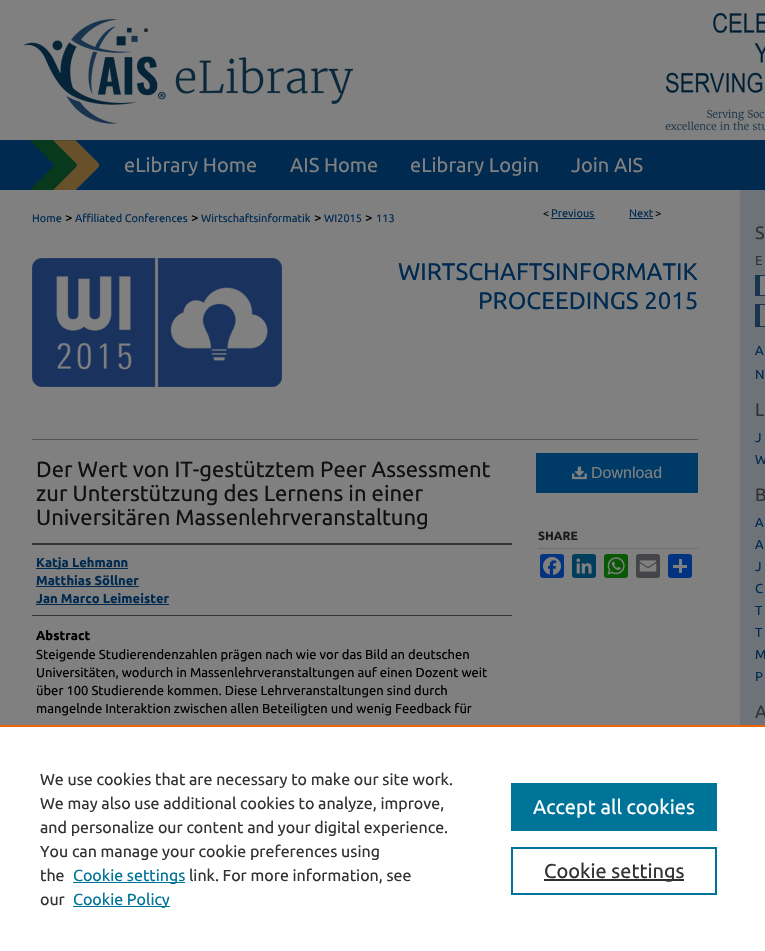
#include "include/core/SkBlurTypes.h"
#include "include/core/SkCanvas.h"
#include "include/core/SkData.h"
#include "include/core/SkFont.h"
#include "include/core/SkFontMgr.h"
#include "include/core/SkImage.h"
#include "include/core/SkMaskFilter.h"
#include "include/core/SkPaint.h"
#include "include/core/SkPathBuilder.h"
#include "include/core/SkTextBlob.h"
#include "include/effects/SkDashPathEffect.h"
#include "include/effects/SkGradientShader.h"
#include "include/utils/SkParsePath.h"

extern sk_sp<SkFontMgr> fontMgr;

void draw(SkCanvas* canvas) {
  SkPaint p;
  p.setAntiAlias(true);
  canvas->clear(SK_ColorWHITE);
  canvas->drawImageRect(SkImages::DeferredFromEncodedData(SkData::MakeFromFileName("images/1.png")), SkRect::MakeLTRB(0, 0, 765, 190), SkSamplingOptions());
  canvas->drawImageRect(SkImages::DeferredFromEncodedData(SkData::MakeFromFileName("images/2.png")), SkRect::MakeLTRB(23, 12, 765, 131), SkSamplingOptions());
  canvas->drawImageRect(SkImages::DeferredFromEncodedData(SkData::MakeFromFileName("images/3.png")), SkRect::MakeLTRB(30, 140, 99, 190), SkSamplingOptions());
  canvas->drawImageRect(SkImages::DeferredFromEncodedData(SkData::MakeFromFileName("images/4.png")), SkRect::MakeLTRB(0, 190, 765, 725), SkSamplingOptions());
  p.setColor(SkColorSetRGB(0, 42, 80));
  canvas->drawRect(SkRect::MakeLTRB(551, 218, 595, 219), p);
  canvas->drawRect(SkRect::MakeLTRB(629, 218, 653, 219), p);
  canvas->drawImageRect(SkImages::DeferredFromEncodedData(SkData::MakeFromFileName("images/5.png")), SkRect::MakeLTRB(32, 258, 282, 387), SkSamplingOptions());
  p.setColor(SkColorSetRGB(85, 85, 85));
  canvas->drawRect(SkRect::MakeLTRB(32, 439, 698, 440), p);
  p.setColor(SkColorSetRGB(51, 51, 51));
  canvas->drawRect(SkRect::MakeLTRB(32, 543, 512, 545), p);
  canvas->drawRect(SkRect::MakeLTRB(32, 615, 512, 616), p);
  p.setColor(SkColorSetRGB(0, 42, 80));
  canvas->drawRect(SkRect::MakeLTRB(36, 568, 128, 569), p);
  canvas->drawRect(SkRect::MakeLTRB(36, 586, 139, 587), p);
  canvas->drawRect(SkRect::MakeLTRB(36, 604, 169, 605), p);
  p.setColor(SkColorSetRGB(0, 58, 102));
  canvas->drawRect(SkRect::MakeLTRB(536, 453, 698, 493), p);
  canvas->drawImageRect(SkImages::DeferredFromEncodedData(SkData::MakeFromFileName("images/6.png")), SkRect::MakeLTRB(572, 466, 587, 480), SkSamplingOptions());
  p.setColor(SkColorSetRGB(111, 111, 111));
  canvas->drawRect(SkRect::MakeLTRB(538, 548, 698, 549), p);
  p.setColor(SkColorSetRGB(4, 51, 128));
  canvas->drawRoundRect(SkRect::MakeLTRB(540, 554, 564, 578), 3, 3, p);
  canvas->drawImageRect(SkImages::DeferredFromEncodedData(SkData::MakeFromFileName("images/7.png")), SkRect::MakeLTRB(543, 557, 561, 575), SkSamplingOptions());
  p.setColor(SkColorSetRGB(0, 62, 91));
  canvas->drawRoundRect(SkRect::MakeLTRB(572, 554, 596, 578), 3, 3, p);
  canvas->drawImageRect(SkImages::DeferredFromEncodedData(SkData::MakeFromFileName("images/8.png")), SkRect::MakeLTRB(576, 558, 592, 574), SkSamplingOptions());
  p.setColor(SkColorSetRGB(9, 88, 5));
  canvas->drawRoundRect(SkRect::MakeLTRB(604, 554, 628, 578), 3, 3, p);
  canvas->drawImageRect(SkImages::DeferredFromEncodedData(SkData::MakeFromFileName("images/9.png")), SkRect::MakeLTRB(607, 557, 625, 575), SkSamplingOptions());
  p.setColor(SkColorSetRGB(68, 69, 72));
  canvas->drawRoundRect(SkRect::MakeLTRB(636, 554, 660, 578), 3, 3, p);
  canvas->drawImageRect(SkImages::DeferredFromEncodedData(SkData::MakeFromFileName("images/10.png")), SkRect::MakeLTRB(639, 560, 657, 572), SkSamplingOptions());
  p.setColor(SkColorSetRGB(1, 51, 128));
  canvas->drawRoundRect(SkRect::MakeLTRB(668, 554, 692, 578), 3, 3, p);
  p.setColor(SkColorSetRGB(128, 128, 128));
  canvas->drawRect(SkRect::MakeLTRB(679, 559, 682, 573), p);
  canvas->drawRect(SkRect::MakeLTRB(673, 565, 687, 568), p);
  canvas->drawRect(SkRect::MakeLTRB(760, 276, 765, 295), p);
  p.setColor(SkColorSetRGB(25, 52, 77));
  canvas->drawRect(SkRect::MakeLTRB(755, 275, 765, 276), p);
  canvas->drawRect(SkRect::MakeLTRB(755, 295, 765, 296), p);
  canvas->drawRect(SkRect::MakeLTRB(755, 275, 760, 296), p);
  p.setColor(SkColorSetRGB(120, 120, 120));
  canvas->drawRect(SkRect::MakeLTRB(760, 305, 765, 326), p);
  p.setColor(SkColorSetRGB(25, 52, 77));
  canvas->drawRect(SkRect::MakeLTRB(755, 304, 765, 305), p);
  canvas->drawRect(SkRect::MakeLTRB(755, 326, 765, 327), p);
  canvas->drawRect(SkRect::MakeLTRB(755, 304, 760, 327), p);
  p.setColor(SkColorSetRGB(235, 101, 0));
  canvas->drawRect(SkRect::MakeLTRB(0, 725, 765, 727), p);
  p.setColor(SkColorSetRGB(0, 115, 152));
  canvas->drawRect(SkRect::MakeLTRB(73, 882, 185, 883), p);
  canvas->drawRect(SkRect::MakeLTRB(73, 906, 170, 907), p);
  canvas->drawRect(SkRect::MakeLTRB(511, 783, 717, 831), p);
  p.setStyle(SkPaint::kStroke_Style);
  p.setStrokeWidth(2);
  canvas->drawRect(SkRect::MakeLTRB(512, 848, 716, 894), p);
  p.setStyle(SkPaint::kFill_Style);
  p.setColor(SkColorSetRGB(46, 46, 46));
  canvas->drawRect(SkRect::MakeLTRB(544, 879, 684, 881), p);
  SkFont font1(fontMgr->matchFamilyStyle("Ubuntu", SkFontStyle::Normal()), 20);
  font1.setSubpixel(true);
  p.setColor(SkColorSetRGB(128, 128, 128));
  canvas->drawString("eLibrary Home", 124, 172, font1, p);
  canvas->drawString("AIS Home", 290, 172, font1, p);
  canvas->drawString("eLibrary Login", 410, 172, font1, p);
  canvas->drawString("Join AIS", 571, 172, font1, p);
  SkFont font2(fontMgr->matchFamilyStyle("Ubuntu", SkFontStyle::Normal()), 11);
  font2.setSubpixel(true);
  p.setColor(SkColorSetRGB(0, 42, 80));
  canvas->drawString("Home", 32, 222, font2, p);
  SkFont font3(fontMgr->matchFamilyStyle("Ubuntu", SkFontStyle::Normal()), 13);
  font3.setSubpixel(true);
  p.setColor(SK_ColorBLACK);
  canvas->drawString(">", 65, 222, font3, p);
  p.setColor(SkColorSetRGB(0, 42, 80));
  canvas->drawString("Affiliated Conferences", 75, 222, font2, p);
  p.setColor(SK_ColorBLACK);
  canvas->drawString(">", 191, 222, font3, p);
  p.setColor(SkColorSetRGB(0, 42, 80));
  canvas->drawString("Wirtschaftsinformatik", 201, 222, font2, p);
  p.setColor(SK_ColorBLACK);
  canvas->drawString(">", 314, 222, font3, p);
  p.setColor(SkColorSetRGB(0, 42, 80));
  canvas->drawString("WI2015", 324, 222, font2, p);
  p.setColor(SK_ColorBLACK);
  canvas->drawString(">", 365, 222, font3, p);
  p.setColor(SkColorSetRGB(0, 42, 80));
  canvas->drawString("113", 376, 222, font2, p);
  p.setColor(SkColorSetRGB(17, 17, 17));
  canvas->drawString("<", 543, 217, font2, p);
  p.setColor(SkColorSetRGB(0, 42, 80));
  canvas->drawString("Previous", 551, 217, font2, p);
  canvas->drawString("Next", 629, 217, font2, p);
  p.setColor(SkColorSetRGB(17, 17, 17));
  canvas->drawString(">", 655, 217, font2, p);
  SkFont font4(fontMgr->matchFamilyStyle("Ubuntu", SkFontStyle::Normal()), 24);
  font4.setSubpixel(true);
  p.setColor(SkColorSetRGB(0, 42, 80));
  canvas->drawString("WIRTSCHAFTSINFORMATIK", 398, 280, font4, p);
  canvas->drawString("PROCEEDINGS 2015", 478, 309, font4, p);
  SkFont font5(fontMgr->matchFamilyStyle("Ubuntu", SkFontStyle::Normal()), 22);
  font5.setSubpixel(true);
  p.setColor(SkColorSetRGB(17, 17, 17));
  canvas->drawString("Der Wert von IT-gestütztem Peer Assessment", 36, 477, font5, p);
  canvas->drawString("zur Unterstützung des Lernens in einer", 36, 501, font5, p);
  canvas->drawString("Universitären Massenlehrveranstaltung", 36, 525, font5, p);
  SkFont font6(fontMgr->matchFamilyStyle("Ubuntu", SkFontStyle::Bold()), 13);
  font6.setSubpixel(true);
  p.setColor(SkColorSetRGB(0, 42, 80));
  canvas->drawString("Katja Lehmann", 36, 567, font6, p);
  canvas->drawString("Matthias Söllner", 36, 585, font6, p);
  canvas->drawString("Jan Marco Leimeister", 36, 603, font6, p);
  p.setColor(SK_ColorBLACK);
  canvas->drawString("Abstract", 36, 640, font6, p);
  canvas->drawString("Steigende Studierendenzahlen prägen nach wie vor das Bild an deutschen", 36, 659, font3, p);
  canvas->drawString("Universitäten, wodurch in Massenlehrveranstaltungen auf einen Dozent weit", 36, 677, font3, p);
  canvas->drawString("über 100 Studierende kommen. Diese Lehrveranstaltungen sind durch", 36, 695, font3, p);
  canvas->drawString("mangelnde Interaktion zwischen allen Beteiligten und wenig Feedback für", 36, 713, font3, p);
  SkFont font7(fontMgr->matchFamilyStyle("Liberation Sans", SkFontStyle::Normal()), 16);
  font7.setSubpixel(true);
  p.setColor(SkColorSetRGB(128, 128, 128));
  canvas->drawString("Download", 591, 478, font7, p);
  SkFont font8(fontMgr->matchFamilyStyle("Ubuntu", SkFontStyle::Bold()), 12);
  font8.setSubpixel(true);
  p.setColor(SkColorSetRGB(26, 26, 26));
  canvas->drawString("SHARE", 538, 540, font8, p);
  SkFont font9(fontMgr->matchFamilyStyle("Ubuntu", SkFontStyle::Normal()), 18);
  font9.setSubpixel(true);
  p.setColor(SkColorSetRGB(51, 51, 51));
  canvas->drawString("S", 755, 239, font9, p);
  canvas->drawString("E", 755, 265, font3, p);
  p.setColor(SkColorSetRGB(0, 42, 80));
  canvas->drawString("A", 755, 355, font3, p);
  canvas->drawString("N", 755, 379, font3, p);
  p.setColor(SkColorSetRGB(51, 51, 51));
  canvas->drawString("L", 755, 416, font9, p);
  p.setColor(SkColorSetRGB(0, 42, 80));
  canvas->drawString("J", 755, 442, font3, p);
  canvas->drawString("W", 755, 464, font3, p);
  p.setColor(SkColorSetRGB(51, 51, 51));
  canvas->drawString("B", 755, 501, font9, p);
  p.setColor(SkColorSetRGB(0, 42, 80));
  canvas->drawString("A", 755, 527, font3, p);
  canvas->drawString("A", 755, 549, font3, p);
  canvas->drawString("J", 755, 571, font3, p);
  canvas->drawString("C", 755, 593, font3, p);
  canvas->drawString("T", 755, 615, font3, p);
  canvas->drawString("T", 755, 637, font3, p);
  canvas->drawString("M", 755, 659, font3, p);
  canvas->drawString("P", 755, 681, font3, p);
  p.setColor(SkColorSetRGB(51, 51, 51));
  canvas->drawString("A", 755, 718, font9, p);
  SkFont font10(fontMgr->matchFamilyStyle("Ubuntu", SkFontStyle::Normal()), 16);
  font10.setSubpixel(true);
  canvas->drawString("We use cookies that are necessary to make our site work.", 40, 785, font10, p);
  canvas->drawString("We may also use additional cookies to analyze, improve,", 40, 809, font10, p);
  canvas->drawString("and personalize our content and your digital experience.", 40, 833, font10, p);
  canvas->drawString("You can manage your cookie preferences using", 40, 857, font10, p);
  canvas->drawString("the", 40, 881, font10, p);
  p.setColor(SkColorSetRGB(0, 115, 152));
  canvas->drawString("Cookie settings", 73, 881, font10, p);
  p.setColor(SkColorSetRGB(51, 51, 51));
  canvas->drawString("link. For more information, see", 189, 881, font10, p);
  canvas->drawString("our", 40, 905, font10, p);
  p.setColor(SkColorSetRGB(0, 115, 152));
  canvas->drawString("Cookie Policy", 73, 905, font10, p);
  p.setColor(SK_ColorWHITE);
  canvas->drawString("Accept all cookies", 533, 814, font1, p);
  p.setColor(SkColorSetRGB(51, 51, 51));
  canvas->drawString("Cookie settings", 544, 878, font1, p);
}
